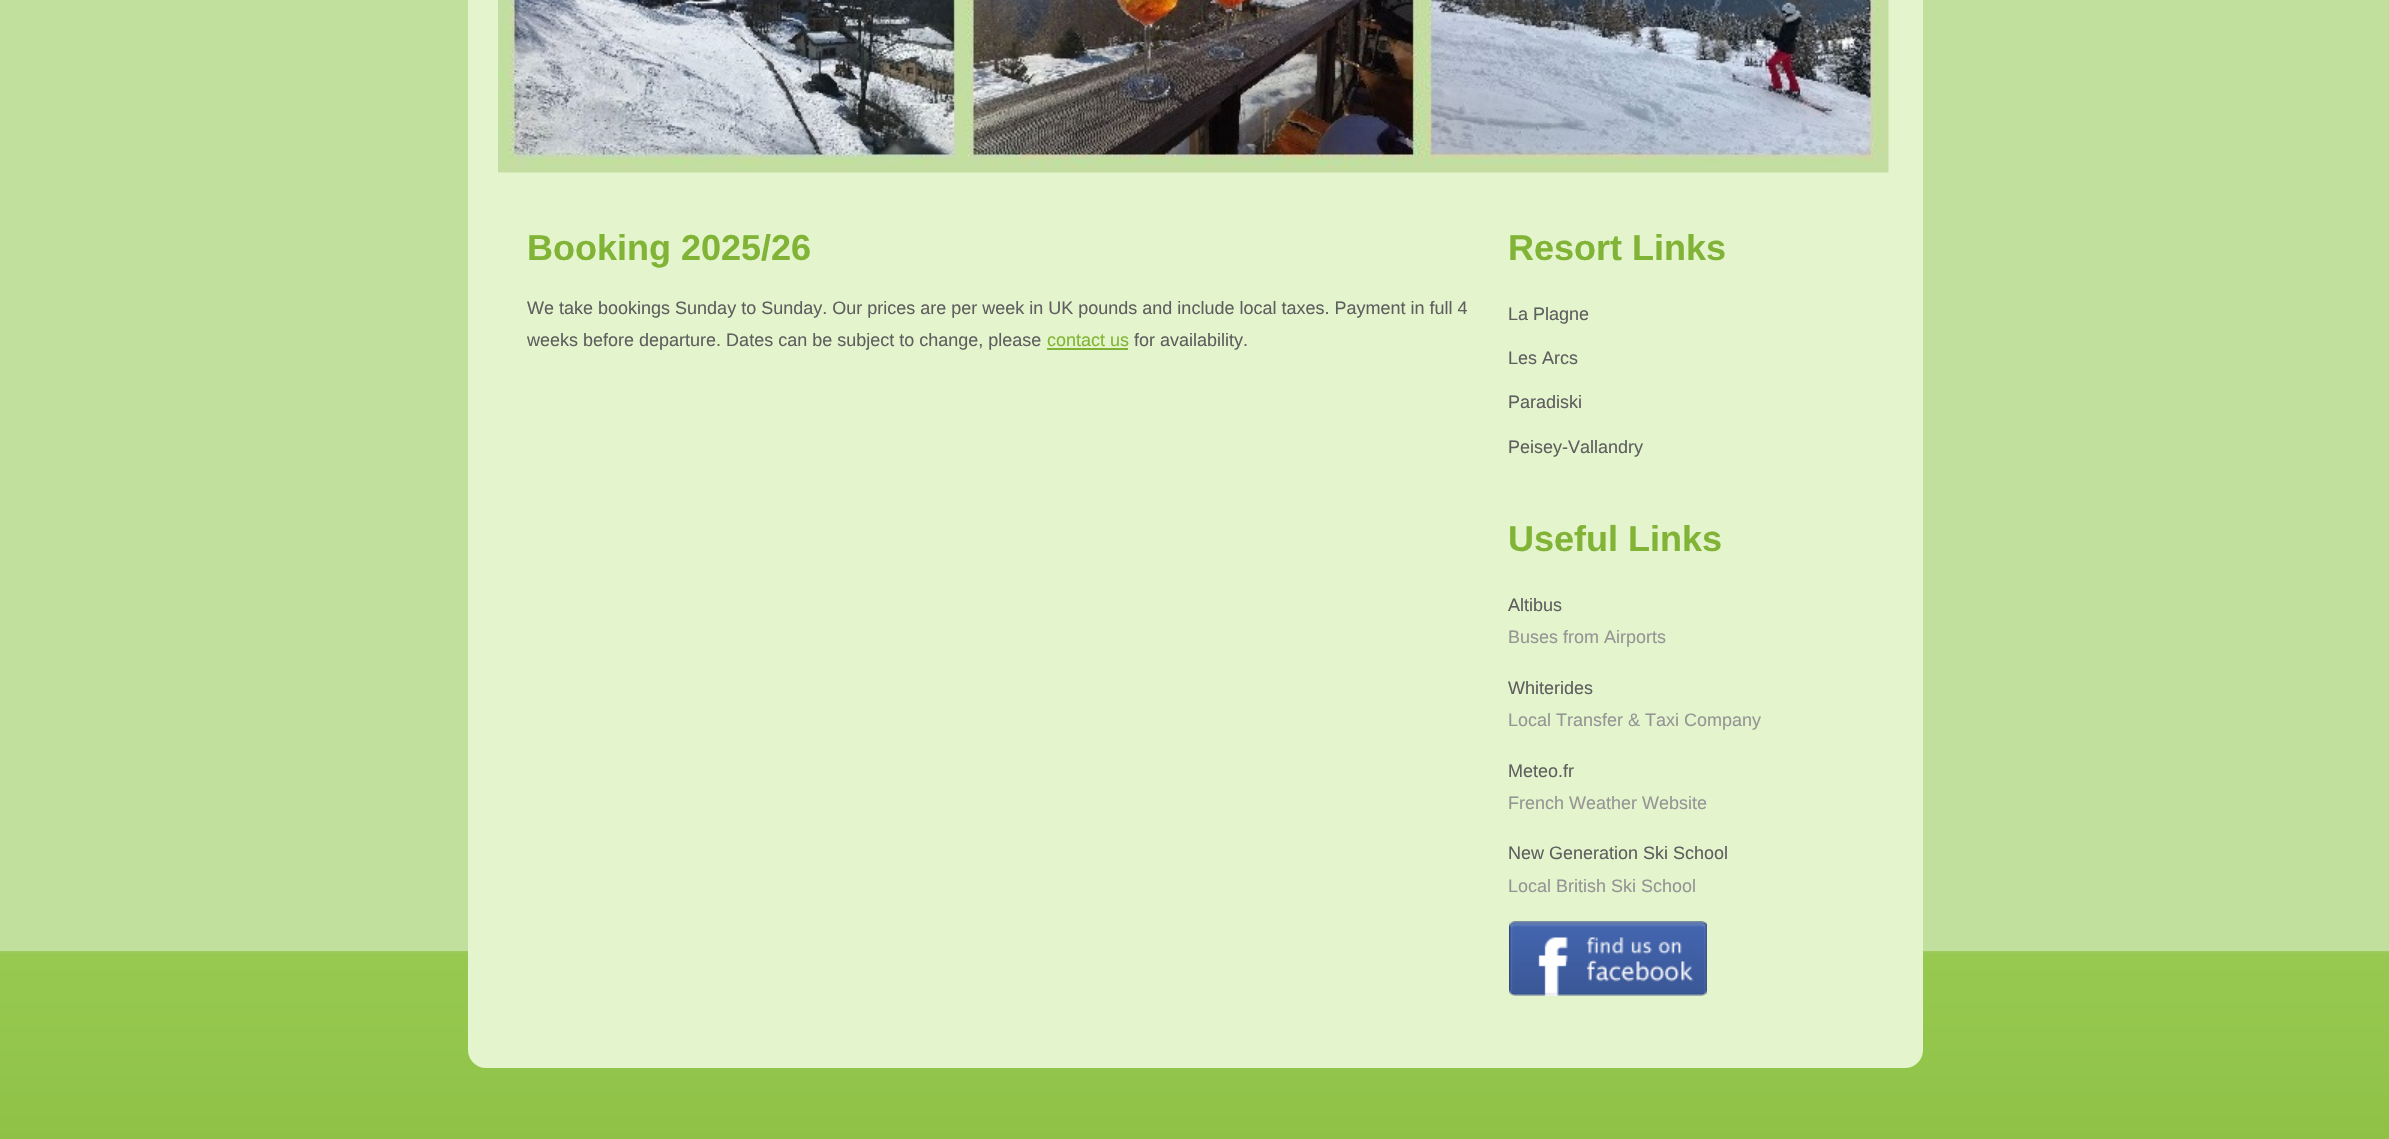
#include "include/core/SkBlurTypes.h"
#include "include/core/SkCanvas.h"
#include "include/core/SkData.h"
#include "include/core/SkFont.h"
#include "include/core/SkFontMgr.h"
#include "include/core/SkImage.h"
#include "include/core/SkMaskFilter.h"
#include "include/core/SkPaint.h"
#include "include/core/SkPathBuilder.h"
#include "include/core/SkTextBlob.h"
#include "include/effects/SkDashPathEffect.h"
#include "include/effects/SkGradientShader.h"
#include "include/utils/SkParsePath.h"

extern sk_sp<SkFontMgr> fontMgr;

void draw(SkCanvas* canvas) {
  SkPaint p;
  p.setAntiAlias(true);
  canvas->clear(SkColorSetRGB(193, 224, 158));
  canvas->drawImageRect(SkImages::DeferredFromEncodedData(SkData::MakeFromFileName("images/1.png")), SkRect::MakeLTRB(0, 951, 2389, 1068), SkSamplingOptions());
  p.setColor(SkColorSetRGB(228, 244, 205));
  canvas->drawRoundRect(SkRect::MakeLTRB(468, -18, 1923, 1068), 18, 18, p);
  canvas->drawImageRect(SkImages::DeferredFromEncodedData(SkData::MakeFromFileName("images/2.png")), SkRect::MakeLTRB(498, 0, 1889, 173), SkSamplingOptions());
  p.setColor(SkColorSetRGB(129, 180, 54));
  canvas->drawRect(SkRect::MakeLTRB(1047, 348, 1128, 350), p);
  canvas->drawImageRect(SkImages::DeferredFromEncodedData(SkData::MakeFromFileName("images/3.png")), SkRect::MakeLTRB(1509, 921, 1707, 996), SkSamplingOptions());
  canvas->drawImageRect(SkImages::DeferredFromEncodedData(SkData::MakeFromFileName("images/4.png")), SkRect::MakeLTRB(0, 1068, 2389, 1139), SkSamplingOptions());
  SkFont font1(fontMgr->matchFamilyStyle("Liberation Sans", SkFontStyle::Bold()), 36);
  font1.setSubpixel(true);
  canvas->drawString("Booking 2025/26", 527, 260, font1, p);
  SkFont font2(fontMgr->matchFamilyStyle("Liberation Sans", SkFontStyle::Normal()), 18);
  font2.setSubpixel(true);
  p.setColor(SkColorSetRGB(95, 95, 95));
  canvas->drawString("We take bookings Sunday to Sunday. Our prices are per week in UK pounds and include local taxes. Payment in full 4", 527, 314, font2, p);
  canvas->drawString("weeks before departure. Dates can be subject to change, please", 527, 346, font2, p);
  p.setColor(SkColorSetRGB(129, 180, 54));
  canvas->drawString("contact us", 1047, 346, font2, p);
  p.setColor(SkColorSetRGB(95, 95, 95));
  canvas->drawString("for availability.", 1134, 346, font2, p);
  p.setColor(SkColorSetRGB(129, 180, 54));
  canvas->drawString("Resort Links", 1508, 260, font1, p);
  p.setColor(SkColorSetRGB(95, 95, 95));
  canvas->drawString("La Plagne", 1508, 320, font2, p);
  canvas->drawString("Les Arcs", 1508, 364, font2, p);
  canvas->drawString("Paradiski", 1508, 408, font2, p);
  canvas->drawString("Peisey-Vallandry", 1508, 453, font2, p);
  p.setColor(SkColorSetRGB(129, 180, 54));
  canvas->drawString("Useful Links", 1508, 551, font1, p);
  p.setColor(SkColorSetRGB(95, 95, 95));
  canvas->drawString("Altibus", 1508, 611, font2, p);
  p.setColor(SkColorSetRGB(149, 149, 149));
  canvas->drawString("Buses from Airports", 1508, 643, font2, p);
  p.setColor(SkColorSetRGB(95, 95, 95));
  canvas->drawString("Whiterides", 1508, 694, font2, p);
  p.setColor(SkColorSetRGB(149, 149, 149));
  canvas->drawString("Local Transfer & Taxi Company", 1508, 726, font2, p);
  p.setColor(SkColorSetRGB(95, 95, 95));
  canvas->drawString("Meteo.fr", 1508, 777, font2, p);
  p.setColor(SkColorSetRGB(149, 149, 149));
  canvas->drawString("French Weather Website", 1508, 809, font2, p);
  p.setColor(SkColorSetRGB(95, 95, 95));
  canvas->drawString("New Generation Ski School", 1508, 859, font2, p);
  p.setColor(SkColorSetRGB(149, 149, 149));
  canvas->drawString("Local British Ski School", 1508, 892, font2, p);
}
